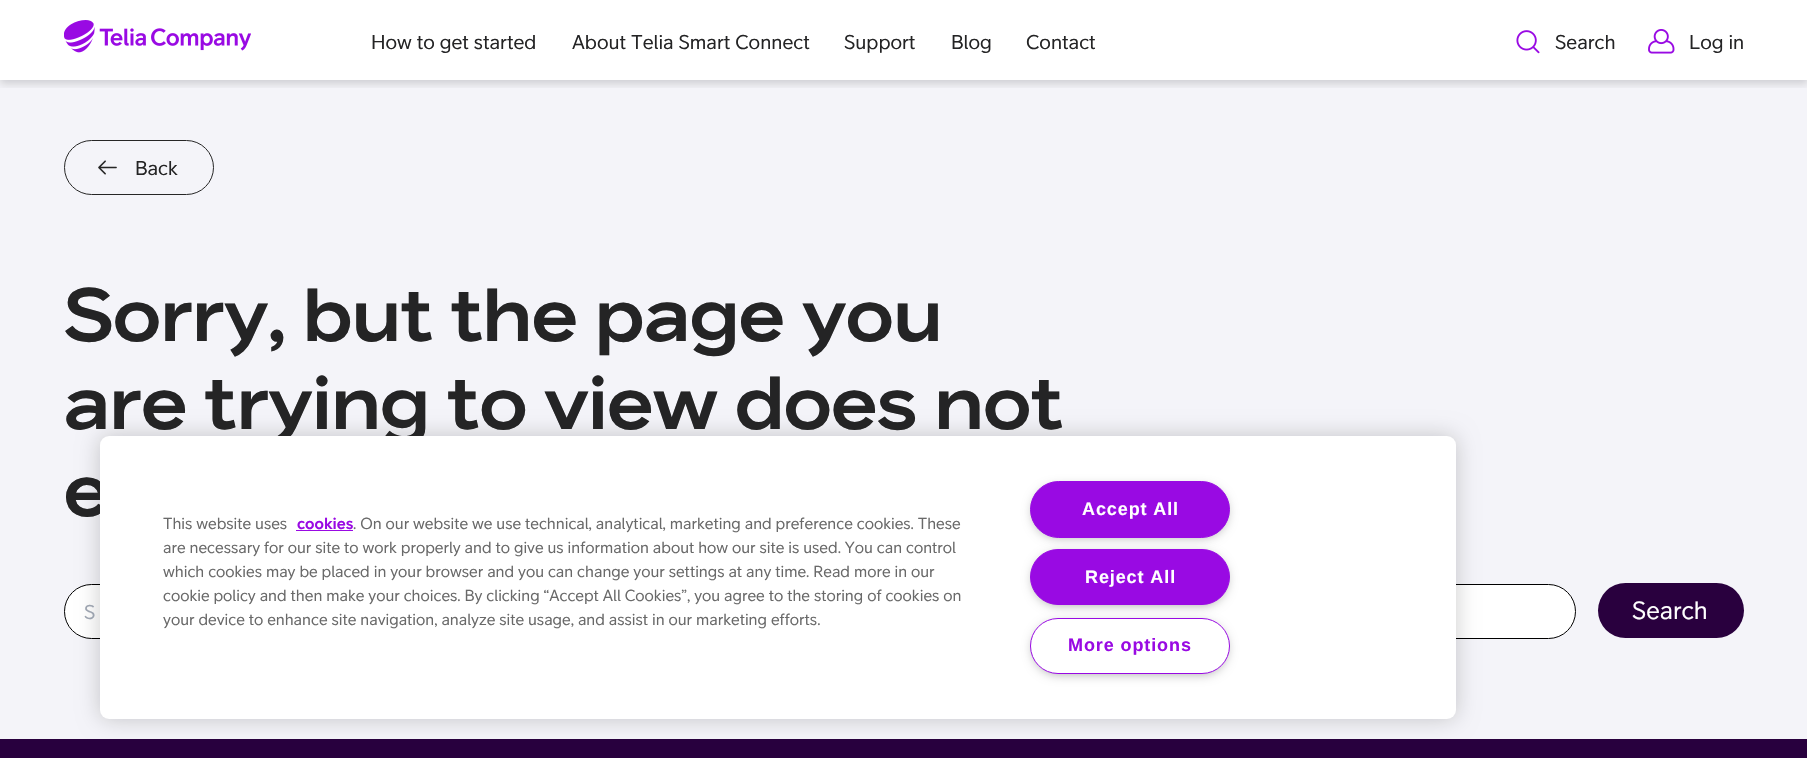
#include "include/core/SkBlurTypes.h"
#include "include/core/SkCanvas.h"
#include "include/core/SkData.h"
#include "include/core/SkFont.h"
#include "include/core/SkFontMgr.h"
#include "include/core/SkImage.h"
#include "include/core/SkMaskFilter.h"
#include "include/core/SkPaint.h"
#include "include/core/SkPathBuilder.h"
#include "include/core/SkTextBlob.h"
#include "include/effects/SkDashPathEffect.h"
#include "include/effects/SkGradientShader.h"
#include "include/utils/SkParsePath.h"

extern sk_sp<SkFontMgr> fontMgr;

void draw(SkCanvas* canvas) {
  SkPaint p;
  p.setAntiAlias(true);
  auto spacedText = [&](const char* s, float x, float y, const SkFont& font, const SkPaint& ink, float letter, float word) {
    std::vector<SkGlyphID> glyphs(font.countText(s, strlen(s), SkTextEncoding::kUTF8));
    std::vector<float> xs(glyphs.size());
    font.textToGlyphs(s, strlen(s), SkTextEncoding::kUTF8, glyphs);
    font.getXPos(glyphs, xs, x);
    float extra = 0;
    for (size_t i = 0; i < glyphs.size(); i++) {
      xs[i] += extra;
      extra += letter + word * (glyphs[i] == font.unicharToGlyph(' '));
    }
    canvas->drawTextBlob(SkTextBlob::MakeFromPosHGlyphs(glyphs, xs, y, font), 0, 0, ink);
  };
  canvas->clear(SK_ColorWHITE);
  p.setColor(SkColorSetRGB(244, 244, 249));
  canvas->drawRect(SkRect::MakeLTRB(0, 80, 1807, 739), p);
  canvas->save();
  canvas->clipRect(SkRect::MakeLTRB(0, 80, 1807, 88));
  p.setColor(SkColorSetARGB(38, 0, 0, 0));
  p.setMaskFilter(SkMaskFilter::MakeBlur(kNormal_SkBlurStyle, 4));
  canvas->drawRect(SkRect::MakeLTRB(0, 4, 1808, 84), p);
  p.setMaskFilter(nullptr);
  canvas->restore();
  canvas->drawImageRect(SkImages::DeferredFromEncodedData(SkData::MakeFromFileName("images/1.png")), SkRect::MakeLTRB(64, 20, 251, 53), SkSamplingOptions());
  canvas->drawImageRect(SkImages::DeferredFromEncodedData(SkData::MakeFromFileName("images/2.png")), SkRect::MakeLTRB(1516, 30, 1540, 54), SkSamplingOptions());
  canvas->drawImageRect(SkImages::DeferredFromEncodedData(SkData::MakeFromFileName("images/3.png")), SkRect::MakeLTRB(1648, 29, 1675, 54), SkSamplingOptions());
  canvas->drawImageRect(SkImages::DeferredFromEncodedData(SkData::MakeFromFileName("images/4.png")), SkRect::MakeLTRB(98, 160, 117, 175), SkSamplingOptions());
  p.setStyle(SkPaint::kStroke_Style);
  p.setStrokeWidth(1);
  p.setColor(SkColorSetRGB(38, 38, 38));
  canvas->drawRoundRect(SkRect::MakeLTRB(64.5f, 140.5f, 213.5f, 194.5f), 27, 27, p);
  p.setStyle(SkPaint::kFill_Style);
  p.setColor(SK_ColorWHITE);
  canvas->drawRoundRect(SkRect::MakeLTRB(64.5f, 584.5f, 1575.5f, 638.5f), 27, 27, p);
  p.setStyle(SkPaint::kStroke_Style);
  p.setColor(SK_ColorBLACK);
  canvas->drawRoundRect(SkRect::MakeLTRB(64.5f, 584.5f, 1575.5f, 638.5f), 27, 27, p);
  p.setStyle(SkPaint::kFill_Style);
  p.setColor(SkColorSetRGB(41, 0, 62));
  canvas->drawRoundRect(SkRect::MakeLTRB(1598, 583, 1744, 638), 27.5f, 27.5f, p);
  p.setColor(SkColorSetRGB(40, 0, 62));
  canvas->drawRect(SkRect::MakeLTRB(0, 739, 1807, 758), p);
  p.setColor(SkColorSetARGB(51, 0, 0, 0));
  p.setMaskFilter(SkMaskFilter::MakeBlur(kNormal_SkBlurStyle, 11));
  canvas->drawRoundRect(SkRect::MakeLTRB(100, 436, 1456, 719), 9, 9, p);
  p.setMaskFilter(nullptr);
  SkFont font1(fontMgr->matchFamilyStyle("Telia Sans", SkFontStyle::Normal()), 20);
  font1.setSubpixel(true);
  p.setColor(SkColorSetRGB(36, 36, 37));
  canvas->drawString("How to get started", 371, 49, font1, p);
  canvas->drawString("About Telia Smart Connect", 572, 49, font1, p);
  canvas->drawString("Support", 844, 49, font1, p);
  canvas->drawString("Blog", 951, 49, font1, p);
  canvas->drawString("Contact", 1026, 49, font1, p);
  canvas->drawString("Search", 1555, 49, font1, p);
  canvas->drawString("Log in", 1689, 49, font1, p);
  canvas->drawString("Back", 135, 175, font1, p);
  SkFont font2(fontMgr->matchFamilyStyle("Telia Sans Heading", SkFontStyle::Bold()), 75);
  font2.setSubpixel(true);
  canvas->drawString("Sorry, but the page you", 64, 341, font2, p);
  canvas->drawString("are trying to view does not", 64, 429, font2, p);
  canvas->drawString("e", 64, 516, font2, p);
  p.setColor(SkColorSetRGB(156, 163, 175));
  canvas->drawString("S", 84, 619, font1, p);
  SkFont font3(fontMgr->matchFamilyStyle("Telia Sans", SkFontStyle::Normal()), 25);
  font3.setSubpixel(true);
  p.setColor(SK_ColorWHITE);
  canvas->drawString("Search", 1632, 619, font3, p);
  canvas->drawRoundRect(SkRect::MakeLTRB(100, 436, 1456, 719), 9, 9, p);
  SkFont font4(fontMgr->matchFamilyStyle("Telia Sans", SkFontStyle::Normal()), 16);
  font4.setSubpixel(true);
  p.setColor(SkColorSetRGB(105, 105, 105));
  canvas->drawString("This website uses", 163, 529, font4, p);
  SkFont font5(fontMgr->matchFamilyStyle("Telia Sans", SkFontStyle::Bold()), 16);
  font5.setSubpixel(true);
  p.setColor(SkColorSetRGB(153, 10, 227));
  canvas->drawString("cookies", 297, 529, font5, p);
  canvas->drawRect(SkRect::MakeLTRB(296, 530, 353, 531), p);
  p.setColor(SkColorSetRGB(105, 105, 105));
  canvas->drawString(". On our website we use technical, analytical, marketing and preference cookies. These", 353, 529, font4, p);
  canvas->drawString("are necessary for our site to work properly and to give us information about how our site is used. You can control", 163, 553, font4, p);
  canvas->drawString("which cookies may be placed in your browser and you can change your settings at any time. Read more in our", 163, 577, font4, p);
  canvas->drawString("cookie policy and then make your choices. By clicking “Accept All Cookies”, you agree to the storing of cookies on", 163, 601, font4, p);
  canvas->drawString("your device to enhance site navigation, analyze site usage, and assist in our marketing efforts.", 163, 625, font4, p);
  p.setColor(SkColorSetRGB(153, 153, 153));
  p.setMaskFilter(SkMaskFilter::MakeBlur(kNormal_SkBlurStyle, 6));
  canvas->drawRoundRect(SkRect::MakeLTRB(1034, 488, 1226, 536), 24, 24, p);
  p.setMaskFilter(nullptr);
  p.setColor(SkColorSetRGB(153, 10, 227));
  canvas->drawRoundRect(SkRect::MakeLTRB(1030.5f, 481.5f, 1229.5f, 537.5f), 28, 28, p);
  p.setStyle(SkPaint::kStroke_Style);
  canvas->drawRoundRect(SkRect::MakeLTRB(1030.5f, 481.5f, 1229.5f, 537.5f), 28, 28, p);
  SkFont font6(fontMgr->matchFamilyStyle("Liberation Sans", SkFontStyle::Bold()), 18);
  font6.setSubpixel(true);
  p.setStyle(SkPaint::kFill_Style);
  p.setColor(SK_ColorWHITE);
  spacedText("Accept All", 1082, 515, font6, p, 0.9f, 0);
  p.setColor(SkColorSetRGB(153, 153, 153));
  p.setMaskFilter(SkMaskFilter::MakeBlur(kNormal_SkBlurStyle, 6));
  canvas->drawRoundRect(SkRect::MakeLTRB(1034, 555, 1226, 604), 24.5f, 24.5f, p);
  p.setMaskFilter(nullptr);
  p.setColor(SkColorSetRGB(153, 10, 227));
  canvas->drawRoundRect(SkRect::MakeLTRB(1030.5f, 549.5f, 1229.5f, 604.5f), 27.5f, 27.5f, p);
  p.setStyle(SkPaint::kStroke_Style);
  canvas->drawRoundRect(SkRect::MakeLTRB(1030.5f, 549.5f, 1229.5f, 604.5f), 27.5f, 27.5f, p);
  p.setStyle(SkPaint::kFill_Style);
  p.setColor(SK_ColorWHITE);
  spacedText("Reject All", 1085, 583, font6, p, 0.9f, 0);
  p.setColor(SkColorSetRGB(153, 153, 153));
  p.setMaskFilter(SkMaskFilter::MakeBlur(kNormal_SkBlurStyle, 6));
  canvas->drawRoundRect(SkRect::MakeLTRB(1034, 624, 1226, 673), 24.5f, 24.5f, p);
  p.setMaskFilter(nullptr);
  p.setColor(SK_ColorWHITE);
  canvas->drawRoundRect(SkRect::MakeLTRB(1030.5f, 618.5f, 1229.5f, 673.5f), 27.5f, 27.5f, p);
  p.setStyle(SkPaint::kStroke_Style);
  p.setColor(SkColorSetRGB(153, 10, 227));
  canvas->drawRoundRect(SkRect::MakeLTRB(1030.5f, 618.5f, 1229.5f, 673.5f), 27.5f, 27.5f, p);
  p.setStyle(SkPaint::kFill_Style);
  spacedText("More options", 1068, 651, font6, p, 0.9f, 0);
}
